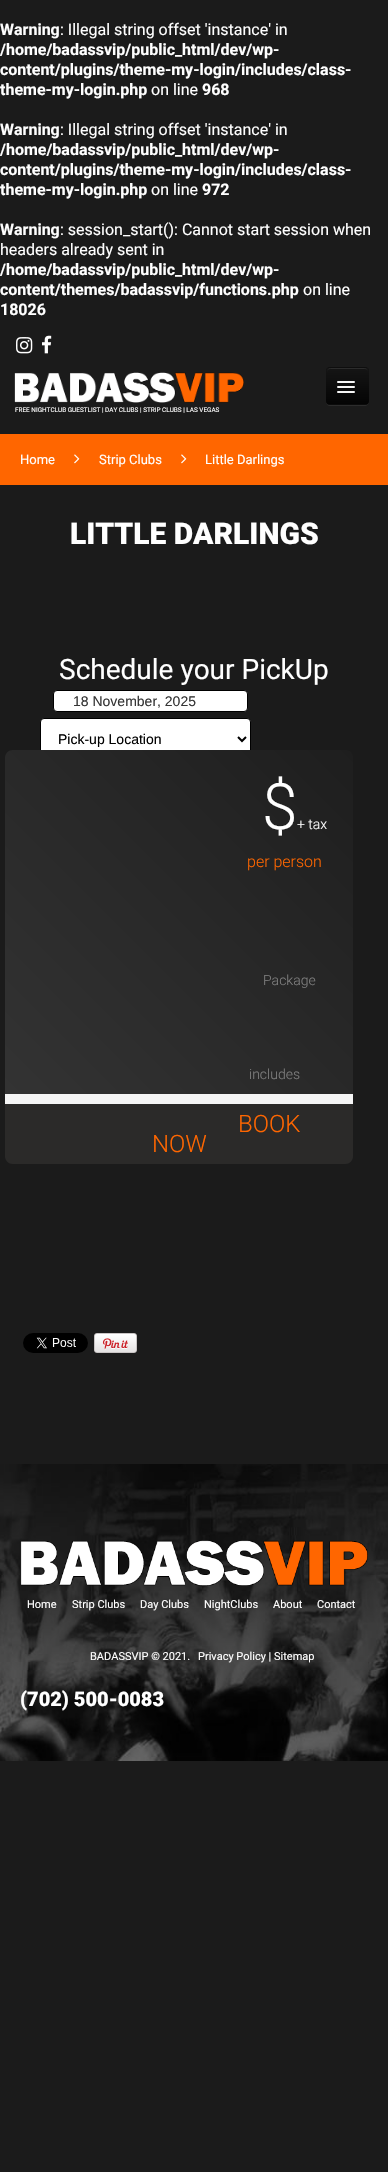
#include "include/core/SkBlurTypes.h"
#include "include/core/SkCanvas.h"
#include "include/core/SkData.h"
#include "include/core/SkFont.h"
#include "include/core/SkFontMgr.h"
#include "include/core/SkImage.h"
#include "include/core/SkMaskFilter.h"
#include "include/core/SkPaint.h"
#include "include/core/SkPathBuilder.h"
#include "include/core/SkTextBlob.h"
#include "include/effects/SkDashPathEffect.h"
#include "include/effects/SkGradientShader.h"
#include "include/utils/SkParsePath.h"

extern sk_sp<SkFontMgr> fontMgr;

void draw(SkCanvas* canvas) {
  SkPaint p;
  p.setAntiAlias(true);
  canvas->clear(SkColorSetRGB(27, 27, 27));
  p.setColor(SkColorSetRGB(44, 44, 44));
  canvas->drawPath(SkPathBuilder().moveTo(326, 401).cubicTo(326, 407, 331, 406, 336, 406).lineTo(359, 406).cubicTo(364, 406, 369, 407, 369, 401).cubicTo(369, 403, 367, 405, 365, 405).lineTo(330, 405).cubicTo(328, 405, 326, 403, 326, 401).close().detach(), p);
  p.setColor(SkColorSetRGB(14, 14, 14));
  canvas->drawRoundRect(SkRect::MakeLTRB(326, 367, 369, 405), 4, 4, p);
  canvas->save();
  canvas->clipPath(SkPathBuilder().moveTo(330, 367).lineTo(365, 367).cubicTo(367, 367, 369, 369, 369, 371).lineTo(369, 401).cubicTo(369, 403, 367, 405, 365, 405).lineTo(330, 405).cubicTo(328, 405, 326, 403, 326, 401).lineTo(326, 371).cubicTo(326, 369, 328, 367, 330, 367).close().detach(), true);
  {
    const SkColor colors[] = {SkColorSetRGB(21, 21, 21), SkColorSetRGB(4, 4, 4)};
    const float stops[] = {0, 1};
    const SkPoint ends[] = {{348, 368}, {348, 404}};
    p.setShader(SkGradientShader::MakeLinear(ends, colors, stops, 2, SkTileMode::kClamp));
    p.setAlpha(255);
  }
  canvas->drawRect(SkRect::MakeLTRB(326, 368, 369, 404), p);
  canvas->restore();
  p.setShader(nullptr);
  p.setColor(SkColorSetRGB(44, 44, 44));
  canvas->drawPath(SkPathBuilder().moveTo(330, 369).lineTo(365, 369).cubicTo(367, 369, 368, 370, 368, 372).cubicTo(368, 367, 363, 368, 359, 368).lineTo(336, 368).cubicTo(332, 368, 327, 367, 327, 372).cubicTo(327, 370, 328, 369, 330, 369).close().detach(), p);
  p.setStyle(SkPaint::kStroke_Style);
  p.setStrokeWidth(1);
  p.setColor(SkColorSetARGB(64, 0, 0, 0));
  canvas->drawPath(SkPathBuilder().moveTo(367.5f, 403.5f).cubicTo(367, 404, 366, 404.5f, 365, 404.5f).lineTo(330, 404.5f).cubicTo(329, 404.5f, 328, 404, 327.5f, 403.5f).detach(), p);
  p.setStyle(SkPaint::kFill_Style);
  p.setColor(SkColorSetRGB(11, 11, 11));
  canvas->drawPath(SkPathBuilder().moveTo(337, 382.5f).cubicTo(336, 384.5f, 340.5f, 384, 340.5f, 384).lineTo(351.5f, 384).cubicTo(351.5f, 384, 356, 384.5f, 355, 382.5f).cubicTo(354, 383.5f, 347.5f, 383, 346, 383).cubicTo(344.5f, 383, 338, 383.5f, 337, 382.5f).close().detach(), p);
  p.setColor(SkColorSetRGB(245, 245, 245));
  canvas->drawRoundRect(SkRect::MakeLTRB(337, 381, 355, 383), 1, 1, p);
  p.setColor(SkColorSetRGB(8, 8, 8));
  canvas->drawPath(SkPathBuilder().moveTo(337, 387.5f).cubicTo(336, 389.5f, 340.5f, 389, 340.5f, 389).lineTo(351.5f, 389).cubicTo(351.5f, 389, 356, 389.5f, 355, 387.5f).cubicTo(354, 388.5f, 347.5f, 388, 346, 388).cubicTo(344.5f, 388, 338, 388.5f, 337, 387.5f).close().detach(), p);
  p.setColor(SkColorSetRGB(245, 245, 245));
  canvas->drawRoundRect(SkRect::MakeLTRB(337, 386, 355, 388), 1, 1, p);
  canvas->drawRoundRect(SkRect::MakeLTRB(337, 391, 355, 393), 1, 1, p);
  canvas->drawImageRect(SkImages::DeferredFromEncodedData(SkData::MakeFromFileName("images/1.png")), SkRect::MakeLTRB(16, 337, 33, 354), SkSamplingOptions());
  canvas->drawImageRect(SkImages::DeferredFromEncodedData(SkData::MakeFromFileName("images/2.png")), SkRect::MakeLTRB(42, 335, 52, 354), SkSamplingOptions());
  canvas->drawImageRect(SkImages::DeferredFromEncodedData(SkData::MakeFromFileName("images/3.png")), SkRect::MakeLTRB(14, 372, 244, 403), SkSamplingOptions());
  p.setColor(SkColorSetRGB(255, 102, 0));
  canvas->drawRect(SkRect::MakeLTRB(0, 434, 388, 485), p);
  canvas->drawImageRect(SkImages::DeferredFromEncodedData(SkData::MakeFromFileName("images/4.png")), SkRect::MakeLTRB(74, 454, 80, 464), SkSamplingOptions());
  canvas->drawImageRect(SkImages::DeferredFromEncodedData(SkData::MakeFromFileName("images/4.png")), SkRect::MakeLTRB(181, 454, 187, 464), SkSamplingOptions());
  p.setColor(SK_ColorWHITE);
  canvas->drawRoundRect(SkRect::MakeLTRB(53.5f, 690.5f, 247.5f, 711.5f), 3.5f, 3.5f, p);
  p.setStyle(SkPaint::kStroke_Style);
  p.setColor(SK_ColorBLACK);
  canvas->drawRoundRect(SkRect::MakeLTRB(53.5f, 690.5f, 247.5f, 711.5f), 3.5f, 3.5f, p);
  p.setStyle(SkPaint::kFill_Style);
  p.setColor(SK_ColorWHITE);
  canvas->drawRoundRect(SkRect::MakeLTRB(40.5f, 718.5f, 250.5f, 759.5f), 3.5f, 3.5f, p);
  p.setStyle(SkPaint::kStroke_Style);
  p.setColor(SK_ColorBLACK);
  canvas->drawRoundRect(SkRect::MakeLTRB(40.5f, 718.5f, 250.5f, 759.5f), 3.5f, 3.5f, p);
  p.setStrokeWidth(2);
  canvas->drawPath(SkPathBuilder().moveTo(238, 737).lineTo(242, 741).lineTo(246, 737).detach(), p);
  p.setStyle(SkPaint::kFill_Style);
  {
    const SkColor colors[] = {SkColorSetRGB(51, 51, 51), SkColorSetRGB(28, 28, 28)};
    const float stops[] = {0, 1};
    const SkPoint ends[] = {{6, 1095}, {387, 714}};
    p.setShader(SkGradientShader::MakeLinear(ends, colors, stops, 2, SkTileMode::kClamp));
    p.setAlpha(255);
  }
  canvas->drawPath(SkPathBuilder().moveTo(13, 750).lineTo(345, 750).cubicTo(349.5f, 750, 353, 753.5f, 353, 758).lineTo(353, 1094).lineTo(5, 1094).lineTo(5, 758).cubicTo(5, 753.5f, 8.5f, 750, 13, 750).close().detach(), p);
  p.setShader(nullptr);
  p.setColor(SkColorSetRGB(245, 245, 245));
  canvas->drawRect(SkRect::MakeLTRB(5, 1094, 353, 1104), p);
  p.setColor(SkColorSetRGB(43, 42, 41));
  canvas->drawPath(SkPathBuilder().moveTo(5, 1104).lineTo(353, 1104).lineTo(353, 1156).cubicTo(353, 1160.5f, 349.5f, 1164, 345, 1164).lineTo(13, 1164).cubicTo(8.5f, 1164, 5, 1160.5f, 5, 1156).close().detach(), p);
  canvas->drawImageRect(SkImages::DeferredFromEncodedData(SkData::MakeFromFileName("images/5.png")), SkRect::MakeLTRB(23, 1333, 88, 1353), SkSamplingOptions());
  canvas->drawImageRect(SkImages::DeferredFromEncodedData(SkData::MakeFromFileName("images/6.png")), SkRect::MakeLTRB(94, 1333, 137, 1353), SkSamplingOptions());
  canvas->drawImageRect(SkImages::DeferredFromEncodedData(SkData::MakeFromFileName("images/7.png")), SkRect::MakeLTRB(0, 1464, 388, 1761), SkSamplingOptions());
  canvas->drawImageRect(SkImages::DeferredFromEncodedData(SkData::MakeFromFileName("images/8.png")), SkRect::MakeLTRB(20, 1540, 368, 1586), SkSamplingOptions());
  SkFont font1(fontMgr->matchFamilyStyle("Roboto", SkFontStyle::Bold()), 16);
  font1.setSubpixel(true);
  p.setColor(SK_ColorWHITE);
  canvas->drawString("Warning", 0, 35, font1, p);
  SkFont font2(fontMgr->matchFamilyStyle("Roboto", SkFontStyle::Normal()), 16);
  font2.setSubpixel(true);
  canvas->drawString(": Illegal string offset 'instance' in", 60, 35, font2, p);
  canvas->drawString("/home/badassvip/public_html/dev/wp-", 0, 55, font1, p);
  canvas->drawString("content/plugins/theme-my-login/includes/class-", 0, 75, font1, p);
  canvas->drawString("theme-my-login.php", 0, 95, font1, p);
  canvas->drawString("on line", 151, 95, font2, p);
  canvas->drawString("968", 202, 95, font1, p);
  canvas->drawString("Warning", 0, 135, font1, p);
  canvas->drawString(": Illegal string offset 'instance' in", 60, 135, font2, p);
  canvas->drawString("/home/badassvip/public_html/dev/wp-", 0, 155, font1, p);
  canvas->drawString("content/plugins/theme-my-login/includes/class-", 0, 175, font1, p);
  canvas->drawString("theme-my-login.php", 0, 195, font1, p);
  canvas->drawString("on line", 151, 195, font2, p);
  canvas->drawString("972", 202, 195, font1, p);
  canvas->drawString("Warning", 0, 235, font1, p);
  canvas->drawString(": session_start(): Cannot start session when", 60, 235, font2, p);
  canvas->drawString("headers already sent in", 0, 255, font2, p);
  canvas->drawString("/home/badassvip/public_html/dev/wp-", 0, 275, font1, p);
  canvas->drawString("content/themes/badassvip/functions.php", 0, 295, font1, p);
  canvas->drawString("on line", 303, 295, font2, p);
  canvas->drawString("18026", 0, 315, font1, p);
  SkFont font3(fontMgr->matchFamilyStyle("Roboto", SkFontStyle::Normal()), 6.4f);
  font3.setSubpixel(true);
  canvas->drawString("FREE NIGHTCLUB GUESTLIST | DAY CLUBS | STRIP CLUBS | LAS VEGAS", 15, 412, font3, p);
  SkFont font4(fontMgr->matchFamilyStyle("Roboto", SkFontStyle::Normal()), 13);
  font4.setSubpixel(true);
  canvas->drawString("Home", 20, 464, font4, p);
  canvas->drawString("Strip Clubs", 99, 464, font4, p);
  canvas->drawString("Little Darlings", 205, 464, font4, p);
  SkFont font5(fontMgr->matchFamilyStyle("Roboto", SkFontStyle(900, SkFontStyle::kNormal_Width, SkFontStyle::kUpright_Slant)), 30);
  font5.setSubpixel(true);
  canvas->drawString("LITTLE DARLINGS", 70, 544, font5, p);
  SkFont font6(fontMgr->matchFamilyStyle("Roboto", SkFontStyle::Normal()), 28);
  font6.setSubpixel(true);
  canvas->drawString("Schedule your PickUp", 59, 679, font6, p);
  SkFont font7(fontMgr->matchFamilyStyle("Liberation Sans", SkFontStyle::Normal()), 14);
  font7.setSubpixel(true);
  p.setColor(SkColorSetRGB(53, 53, 53));
  canvas->drawString("18 November, 2025", 73, 706, font7, p);
  p.setColor(SK_ColorBLACK);
  canvas->drawString("Pick-up Location", 58, 744, font7, p);
  SkFont font8(fontMgr->matchFamilyStyle("Roboto", SkFontStyle(300, SkFontStyle::kNormal_Width, SkFontStyle::kUpright_Slant)), 64);
  font8.setSubpixel(true);
  p.setColor(SK_ColorWHITE);
  canvas->drawString("$", 262, 829, font8, p);
  SkFont font9(fontMgr->matchFamilyStyle("Roboto", SkFontStyle(300, SkFontStyle::kNormal_Width, SkFontStyle::kUpright_Slant)), 14);
  font9.setSubpixel(true);
  canvas->drawString("+ tax", 297, 829, font9, p);
  SkFont font10(fontMgr->matchFamilyStyle("Roboto", SkFontStyle(300, SkFontStyle::kNormal_Width, SkFontStyle::kUpright_Slant)), 16);
  font10.setSubpixel(true);
  p.setColor(SkColorSetRGB(255, 102, 0));
  canvas->drawString("per person", 247, 867, font10, p);
  p.setColor(SkColorSetRGB(128, 128, 128));
  canvas->drawString("Package", 263, 985, font9, p);
  canvas->drawString("includes", 249, 1079, font9, p);
  SkFont font11(fontMgr->matchFamilyStyle("Roboto", SkFontStyle(300, SkFontStyle::kNormal_Width, SkFontStyle::kUpright_Slant)), 24);
  font11.setSubpixel(true);
  p.setColor(SkColorSetRGB(255, 102, 0));
  canvas->drawString("BOOK", 238, 1132, font11, p);
  canvas->drawString("NOW", 152, 1152, font11, p);
  SkFont font12(fontMgr->matchFamilyStyle("Roboto", SkFontStyle::Normal()), 11);
  font12.setSubpixel(true);
  p.setColor(SK_ColorWHITE);
  canvas->drawString("Home", 27, 1608, font12, p);
  canvas->drawString("Strip Clubs", 72, 1608, font12, p);
  canvas->drawString("Day Clubs", 140, 1608, font12, p);
  canvas->drawString("NightClubs", 204, 1608, font12, p);
  canvas->drawString("About", 273, 1608, font12, p);
  canvas->drawString("Contact", 317, 1608, font12, p);
  canvas->drawString("BADASSVIP © 2021.", 90, 1660, font12, p);
  canvas->drawString("Privacy Policy | Sitemap", 198, 1660, font12, p);
  SkFont font13(fontMgr->matchFamilyStyle("Roboto", SkFontStyle(900, SkFontStyle::kNormal_Width, SkFontStyle::kUpright_Slant)), 20);
  font13.setSubpixel(true);
  canvas->drawString("(702) 500-0083", 20, 1706, font13, p);
}
